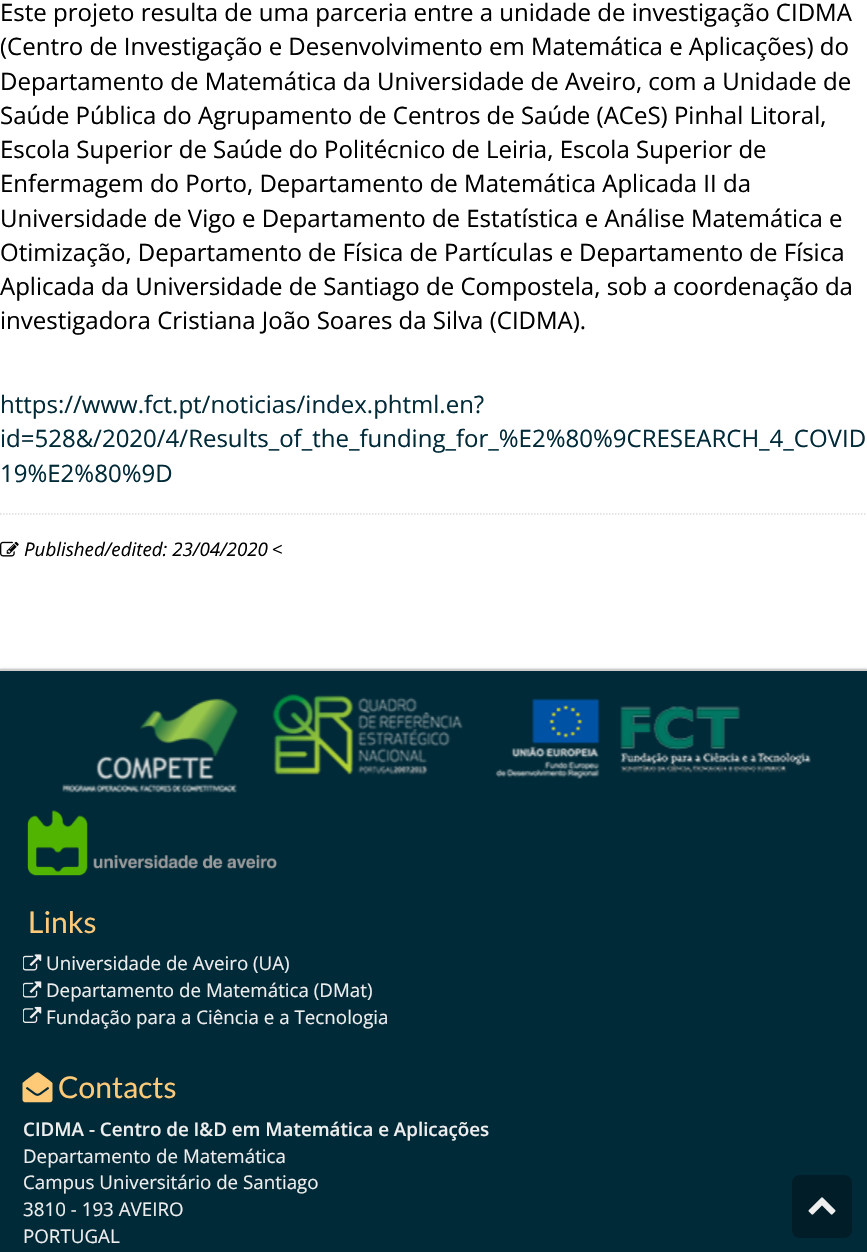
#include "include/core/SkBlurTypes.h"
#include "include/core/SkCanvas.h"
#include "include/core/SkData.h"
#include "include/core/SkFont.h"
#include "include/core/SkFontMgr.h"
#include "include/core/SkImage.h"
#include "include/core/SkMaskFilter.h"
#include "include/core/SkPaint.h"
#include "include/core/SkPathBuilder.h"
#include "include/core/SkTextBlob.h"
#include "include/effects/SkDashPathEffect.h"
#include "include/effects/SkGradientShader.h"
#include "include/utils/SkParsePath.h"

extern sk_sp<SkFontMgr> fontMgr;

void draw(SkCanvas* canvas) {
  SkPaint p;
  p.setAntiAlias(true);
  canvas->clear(SK_ColorWHITE);
  p.setStyle(SkPaint::kStroke_Style);
  p.setStrokeWidth(1.5f);
  p.setColor(SkColorSetRGB(221, 221, 221));
  p.setPathEffect(SkDashPathEffect::Make({{1.5f, 1.5f}}, 0));
  canvas->drawPath(SkPathBuilder().moveTo(0, 514).lineTo(867, 514).detach(), p);
  p.setPathEffect(nullptr);
  canvas->drawImageRect(SkImages::DeferredFromEncodedData(SkData::MakeFromFileName("images/1.png")), SkRect::MakeLTRB(0, 541, 19, 557), SkSamplingOptions());
  p.setStyle(SkPaint::kFill_Style);
  p.setColor(SkColorSetARGB(77, 0, 0, 0));
  p.setMaskFilter(SkMaskFilter::MakeBlur(kNormal_SkBlurStyle, 1));
  canvas->drawRect(SkRect::MakeLTRB(0, 669, 867, 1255), p);
  p.setMaskFilter(nullptr);
  p.setColor(SkColorSetRGB(1, 42, 56));
  canvas->drawRect(SkRect::MakeLTRB(0, 671, 867, 1252), p);
  p.setColor(SkColorSetRGB(204, 204, 204));
  canvas->drawRect(SkRect::MakeLTRB(0, 669, 867, 671), p);
  canvas->drawImageRect(SkImages::DeferredFromEncodedData(SkData::MakeFromFileName("images/2.png")), SkRect::MakeLTRB(62, 698, 238, 793), SkSamplingOptions());
  canvas->drawImageRect(SkImages::DeferredFromEncodedData(SkData::MakeFromFileName("images/3.png")), SkRect::MakeLTRB(272, 694, 463, 775), SkSamplingOptions());
  canvas->drawImageRect(SkImages::DeferredFromEncodedData(SkData::MakeFromFileName("images/4.png")), SkRect::MakeLTRB(495, 698, 600, 779), SkSamplingOptions());
  canvas->drawImageRect(SkImages::DeferredFromEncodedData(SkData::MakeFromFileName("images/5.png")), SkRect::MakeLTRB(620, 706, 811, 773), SkSamplingOptions());
  canvas->drawImageRect(SkImages::DeferredFromEncodedData(SkData::MakeFromFileName("images/6.png")), SkRect::MakeLTRB(27, 810, 277, 876), SkSamplingOptions());
  canvas->drawImageRect(SkImages::DeferredFromEncodedData(SkData::MakeFromFileName("images/7.png")), SkRect::MakeLTRB(23, 954, 42, 971), SkSamplingOptions());
  canvas->drawImageRect(SkImages::DeferredFromEncodedData(SkData::MakeFromFileName("images/7.png")), SkRect::MakeLTRB(23, 981, 42, 998), SkSamplingOptions());
  canvas->drawImageRect(SkImages::DeferredFromEncodedData(SkData::MakeFromFileName("images/8.png")), SkRect::MakeLTRB(23, 1006, 42, 1023), SkSamplingOptions());
  canvas->drawImageRect(SkImages::DeferredFromEncodedData(SkData::MakeFromFileName("images/9.png")), SkRect::MakeLTRB(22, 1072, 53, 1103), SkSamplingOptions());
  p.setColor(SkColorSetRGB(1, 29, 39));
  canvas->drawRoundRect(SkRect::MakeLTRB(792, 1175, 852, 1238), 8, 8, p);
  canvas->drawImageRect(SkImages::DeferredFromEncodedData(SkData::MakeFromFileName("images/10.png")), SkRect::MakeLTRB(808, 1197, 836, 1215), SkSamplingOptions());
  SkFont font1(fontMgr->matchFamilyStyle("Open Sans", SkFontStyle::Normal()), 24);
  font1.setSubpixel(true);
  p.setColor(SK_ColorBLACK);
  canvas->drawString("Este projeto resulta de uma parceria entre a unidade de investigação CIDMA", 0, 21, font1, p);
  canvas->drawString("(Centro de Investigação e Desenvolvimento em Matemática e Aplicações) do", 0, 55, font1, p);
  canvas->drawString("Departamento de Matemática da Universidade de Aveiro, com a Unidade de", 0, 90, font1, p);
  canvas->drawString("Saúde Pública do Agrupamento de Centros de Saúde (ACeS) Pinhal Litoral,", 0, 124, font1, p);
  canvas->drawString("Escola Superior de Saúde do Politécnico de Leiria, Escola Superior de", 0, 158, font1, p);
  canvas->drawString("Enfermagem do Porto, Departamento de Matemática Aplicada II da", 0, 192, font1, p);
  canvas->drawString("Universidade de Vigo e Departamento de Estatística e Análise Matemática e", 0, 227, font1, p);
  canvas->drawString("Otimização, Departamento de Física de Partículas e Departamento de Física", 0, 261, font1, p);
  canvas->drawString("Aplicada da Universidade de Santiago de Compostela, sob a coordenação da", 0, 295, font1, p);
  canvas->drawString("investigadora Cristiana João Soares da Silva (CIDMA).", 0, 329, font1, p);
  p.setColor(SkColorSetRGB(1, 42, 56));
  canvas->drawString("https://www.fct.pt/noticias/index.phtml.en?", 0, 413, font1, p);
  canvas->drawString("id=528&/2020/4/Results_of_the_funding_for_%E2%80%9CRESEARCH_4_COVID", 0, 447, font1, p);
  canvas->drawString("19%E2%80%9D", 0, 482, font1, p);
  SkFont font2(fontMgr->matchFamilyStyle("Open Sans", SkFontStyle::Italic()), 18.75f);
  font2.setSubpixel(true);
  p.setColor(SK_ColorBLACK);
  canvas->drawString("Published/edited: 23/04/2020", 24, 556, font2, p);
  SkFont font3(fontMgr->matchFamilyStyle("Open Sans", SkFontStyle::Normal()), 18.75f);
  font3.setSubpixel(true);
  canvas->drawString("<", 272, 556, font3, p);
  SkFont font4(fontMgr->matchFamilyStyle("Lato", SkFontStyle::Normal()), 30);
  font4.setSubpixel(true);
  p.setColor(SkColorSetRGB(255, 202, 119));
  canvas->drawString("Links", 28, 933, font4, p);
  p.setColor(SkColorSetRGB(238, 238, 238));
  canvas->drawString("Universidade de Aveiro (UA)", 46, 970, font3, p);
  canvas->drawString("Departamento de Matemática (DMat)", 46, 997, font3, p);
  canvas->drawString("Fundação para a Ciência e a Tecnologia", 46, 1024, font3, p);
  p.setColor(SkColorSetRGB(255, 202, 119));
  canvas->drawString("Contacts", 58, 1098, font4, p);
  SkFont font5(fontMgr->matchFamilyStyle("Open Sans", SkFontStyle(600, SkFontStyle::kNormal_Width, SkFontStyle::kUpright_Slant)), 18.75f);
  font5.setSubpixel(true);
  p.setColor(SkColorSetRGB(238, 238, 238));
  canvas->drawString("CIDMA - Centro de I&D em Matemática e Aplicações", 23, 1136, font5, p);
  canvas->drawString("Departamento de Matemática", 23, 1163, font3, p);
  canvas->drawString("Campus Universitário de Santiago", 23, 1189, font3, p);
  canvas->drawString("3810 - 193 AVEIRO", 23, 1216, font3, p);
  canvas->drawString("PORTUGAL", 23, 1243, font3, p);
}
